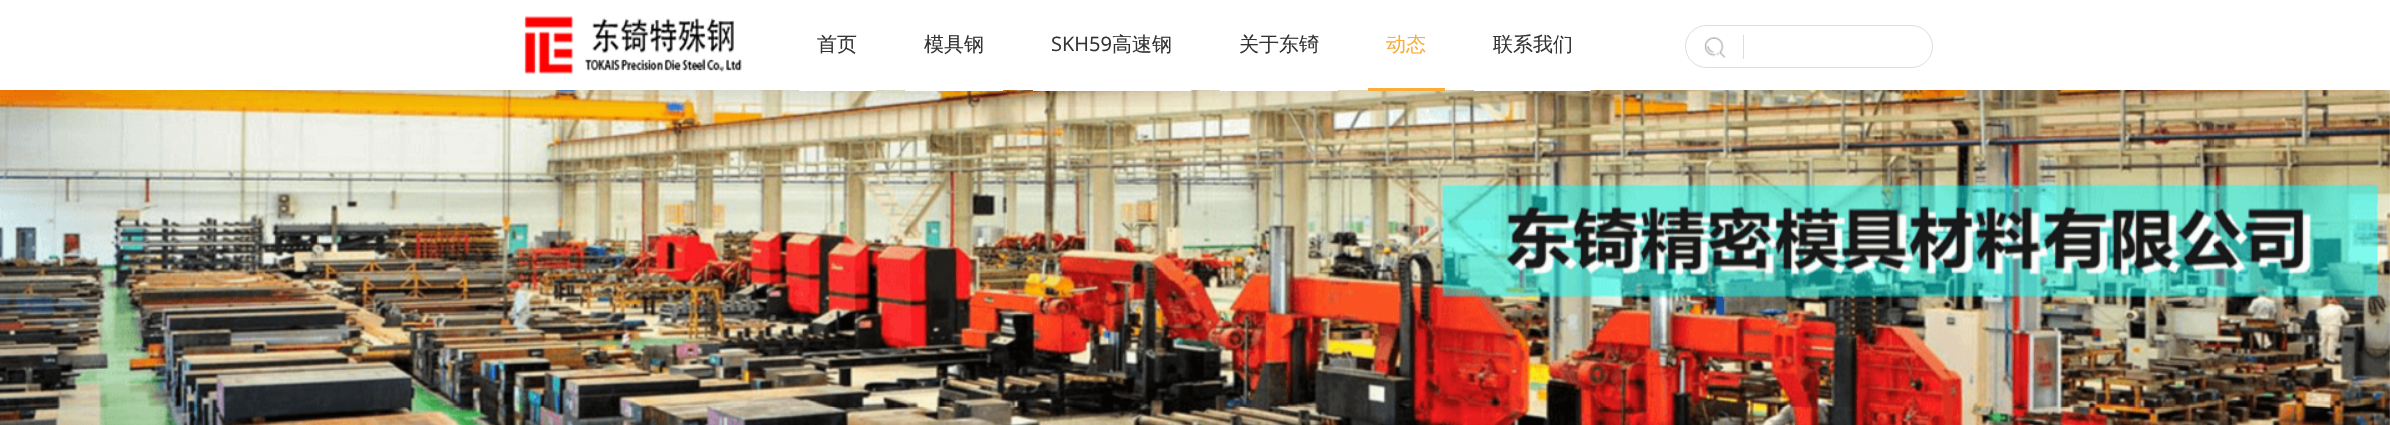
#include "include/core/SkBlurTypes.h"
#include "include/core/SkCanvas.h"
#include "include/core/SkData.h"
#include "include/core/SkFont.h"
#include "include/core/SkFontMgr.h"
#include "include/core/SkImage.h"
#include "include/core/SkMaskFilter.h"
#include "include/core/SkPaint.h"
#include "include/core/SkPathBuilder.h"
#include "include/core/SkTextBlob.h"
#include "include/effects/SkDashPathEffect.h"
#include "include/effects/SkGradientShader.h"
#include "include/utils/SkParsePath.h"

extern sk_sp<SkFontMgr> fontMgr;

void draw(SkCanvas* canvas) {
  SkPaint p;
  p.setAntiAlias(true);
  canvas->clear(SK_ColorWHITE);
  canvas->drawImageRect(SkImages::DeferredFromEncodedData(SkData::MakeFromFileName("images/3.png")), SkRect::MakeLTRB(0, 90, 2390, 425), SkSamplingOptions());
  canvas->save();
  canvas->clipRect(SkRect::MakeLTRB(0, 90, 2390, 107));
  p.setColor(SkColorSetARGB(26, 0, 0, 0));
  p.setMaskFilter(SkMaskFilter::MakeBlur(kNormal_SkBlurStyle, 12.5f));
  canvas->drawRect(SkRect::MakeLTRB(0, 6, 2390, 96), p);
  p.setMaskFilter(nullptr);
  canvas->restore();
  canvas->drawImageRect(SkImages::DeferredFromEncodedData(SkData::MakeFromFileName("images/1.png")), SkRect::MakeLTRB(524, 16, 742, 74), SkSamplingOptions());
  p.setColor(SK_ColorWHITE);
  canvas->drawRect(SkRect::MakeLTRB(799, 90, 876, 91), p);
  canvas->drawRect(SkRect::MakeLTRB(905, 90, 1003, 91), p);
  canvas->drawRect(SkRect::MakeLTRB(1033, 90, 1191, 91), p);
  canvas->drawRect(SkRect::MakeLTRB(1220, 90, 1338, 91), p);
  p.setColor(SkColorSetRGB(250, 173, 57));
  canvas->drawRect(SkRect::MakeLTRB(1368, 88, 1445, 91), p);
  p.setColor(SK_ColorWHITE);
  canvas->drawRect(SkRect::MakeLTRB(1474, 90, 1591, 91), p);
  p.setStyle(SkPaint::kStroke_Style);
  p.setStrokeWidth(1);
  p.setColor(SkColorSetRGB(221, 221, 221));
  canvas->drawRoundRect(SkRect::MakeLTRB(1685.5f, 25.5f, 1932.5f, 67.5f), 21, 21, p);
  canvas->drawImageRect(SkImages::DeferredFromEncodedData(SkData::MakeFromFileName("images/2.png")), SkRect::MakeLTRB(1704, 37, 1726, 58), SkSamplingOptions());
  p.setStyle(SkPaint::kFill_Style);
  canvas->drawRect(SkRect::MakeLTRB(1743, 35, 1744, 59), p);
  SkFont font1(fontMgr->matchFamilyStyle("WenQuanYi Zen Hei", SkFontStyle(500, SkFontStyle::kNormal_Width, SkFontStyle::kUpright_Slant)), 20);
  font1.setSubpixel(true);
  p.setColor(SkColorSetRGB(51, 51, 51));
  canvas->drawString("首页", 817, 51, font1, p);
  canvas->drawString("模具钢", 924, 51, font1, p);
  SkFont font2(fontMgr->matchFamilyStyle("Open Sans", SkFontStyle::Normal()), 20);
  font2.setSubpixel(true);
  canvas->drawString("SKH59", 1051, 51, font2, p);
  canvas->drawString("高速钢", 1112, 51, font1, p);
  canvas->drawString("关于东锜", 1239, 51, font1, p);
  p.setColor(SkColorSetRGB(250, 173, 57));
  canvas->drawString("动态", 1386, 51, font1, p);
  p.setColor(SkColorSetRGB(51, 51, 51));
  canvas->drawString("联系我们", 1493, 51, font1, p);
}
